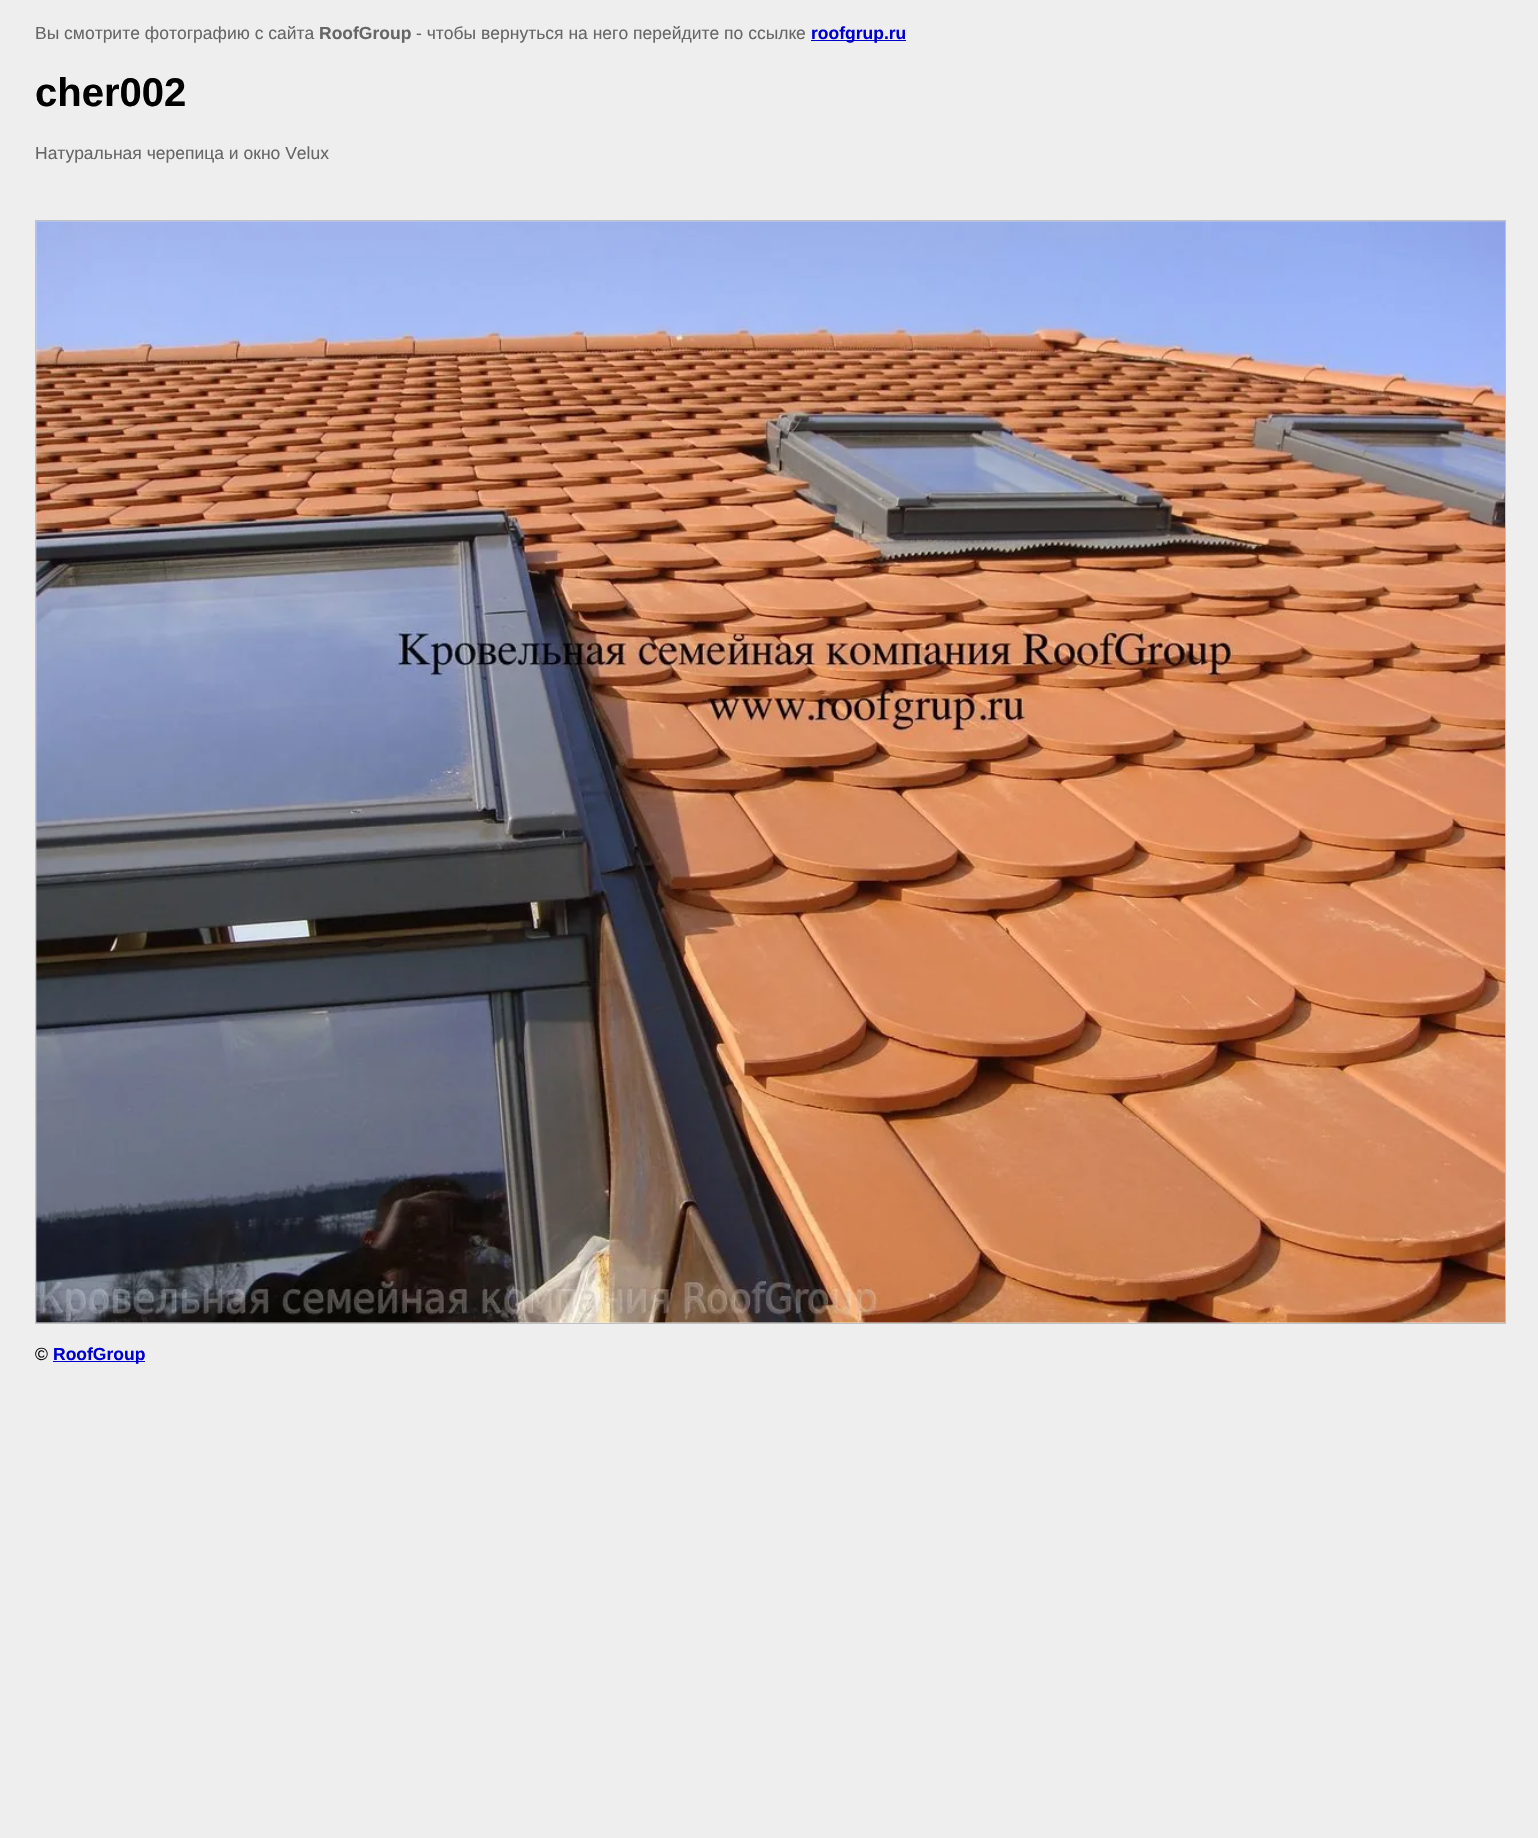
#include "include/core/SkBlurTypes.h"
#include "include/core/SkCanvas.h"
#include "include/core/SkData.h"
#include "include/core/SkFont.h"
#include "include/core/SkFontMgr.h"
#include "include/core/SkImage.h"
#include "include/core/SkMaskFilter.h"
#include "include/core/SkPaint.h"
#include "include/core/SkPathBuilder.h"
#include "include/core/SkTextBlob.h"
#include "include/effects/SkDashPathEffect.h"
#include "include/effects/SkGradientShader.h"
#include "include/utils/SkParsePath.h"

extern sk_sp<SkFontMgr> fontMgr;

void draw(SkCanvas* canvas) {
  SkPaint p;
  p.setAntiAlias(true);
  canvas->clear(SkColorSetRGB(238, 238, 238));
  p.setColor(SkColorSetRGB(0, 0, 204));
  canvas->drawRect(SkRect::MakeLTRB(811, 40, 906, 41), p);
  p.setStyle(SkPaint::kStroke_Style);
  p.setStrokeWidth(1);
  p.setColor(SkColorSetRGB(192, 192, 192));
  canvas->drawRect(SkRect::MakeLTRB(35.5f, 220.5f, 1505.5f, 1323.5f), p);
  canvas->drawImageRect(SkImages::DeferredFromEncodedData(SkData::MakeFromFileName("images/1.png")), SkRect::MakeLTRB(36, 221, 1505, 1323), SkSamplingOptions());
  p.setStyle(SkPaint::kFill_Style);
  p.setColor(SkColorSetRGB(0, 0, 204));
  canvas->drawRect(SkRect::MakeLTRB(53, 1361, 145, 1362), p);
  SkFont font1(fontMgr->matchFamilyStyle("Liberation Sans", SkFontStyle::Normal()), 17.5f);
  font1.setSubpixel(true);
  p.setColor(SkColorSetRGB(102, 102, 102));
  canvas->drawString("Вы смотрите фотографию с сайта", 35, 39, font1, p);
  SkFont font2(fontMgr->matchFamilyStyle("Liberation Sans", SkFontStyle::Bold()), 17.5f);
  font2.setSubpixel(true);
  canvas->drawString("RoofGroup", 319, 39, font2, p);
  canvas->drawString("- чтобы вернуться на него перейдите по ссылке", 416, 39, font1, p);
  p.setColor(SkColorSetRGB(0, 0, 204));
  canvas->drawString("roofgrup.ru", 811, 39, font2, p);
  SkFont font3(fontMgr->matchFamilyStyle("Liberation Sans", SkFontStyle::Bold()), 40);
  font3.setSubpixel(true);
  p.setColor(SK_ColorBLACK);
  canvas->drawString("cher002", 35, 106, font3, p);
  p.setColor(SkColorSetRGB(102, 102, 102));
  canvas->drawString("Натуральная черепица и окно Velux", 35, 159, font1, p);
  p.setColor(SK_ColorBLACK);
  canvas->drawString("©", 35, 1360, font1, p);
  p.setColor(SkColorSetRGB(0, 0, 204));
  canvas->drawString("RoofGroup", 53, 1360, font2, p);
}
